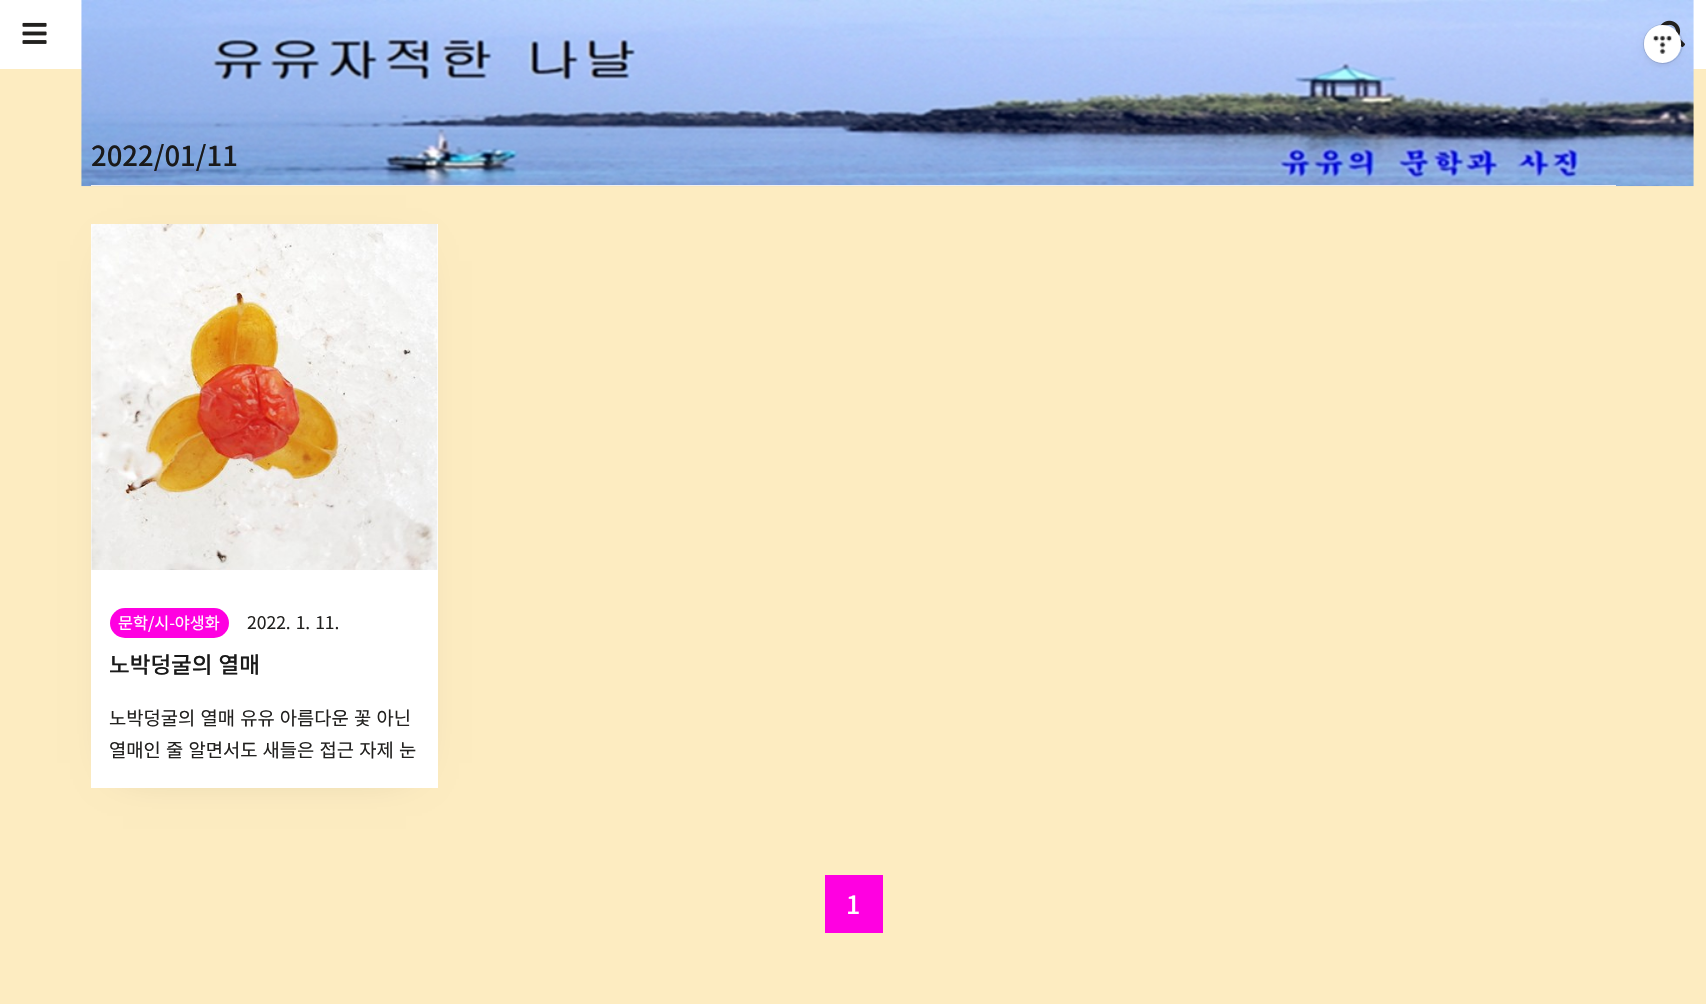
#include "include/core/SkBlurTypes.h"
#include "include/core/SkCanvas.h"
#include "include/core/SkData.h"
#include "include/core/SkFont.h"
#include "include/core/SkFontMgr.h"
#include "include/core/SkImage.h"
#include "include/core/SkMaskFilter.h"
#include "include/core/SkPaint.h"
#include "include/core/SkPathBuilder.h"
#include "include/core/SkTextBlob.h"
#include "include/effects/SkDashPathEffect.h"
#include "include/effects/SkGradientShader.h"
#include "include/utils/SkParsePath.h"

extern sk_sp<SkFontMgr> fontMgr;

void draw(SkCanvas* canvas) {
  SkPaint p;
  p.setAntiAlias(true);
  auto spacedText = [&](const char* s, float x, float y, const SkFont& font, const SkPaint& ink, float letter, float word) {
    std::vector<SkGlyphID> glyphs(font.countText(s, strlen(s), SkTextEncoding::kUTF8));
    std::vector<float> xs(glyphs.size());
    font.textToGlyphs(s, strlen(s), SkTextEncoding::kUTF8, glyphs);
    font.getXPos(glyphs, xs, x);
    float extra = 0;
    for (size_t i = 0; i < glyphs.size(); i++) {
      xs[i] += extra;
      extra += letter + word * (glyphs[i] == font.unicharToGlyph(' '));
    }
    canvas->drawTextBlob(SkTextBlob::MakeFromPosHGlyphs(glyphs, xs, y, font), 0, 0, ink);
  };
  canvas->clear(SkColorSetRGB(253, 236, 193));
  p.setColor(SK_ColorWHITE);
  canvas->drawRect(SkRect::MakeLTRB(0, 0, 1706, 69), p);
  canvas->drawImageRect(SkImages::DeferredFromEncodedData(SkData::MakeFromFileName("images/2.png")), SkRect::MakeLTRB(81, 0, 1694, 187), SkSamplingOptions());
  canvas->drawImageRect(SkImages::DeferredFromEncodedData(SkData::MakeFromFileName("images/4.png")), SkRect::MakeLTRB(1660, 20, 1685, 47), SkSamplingOptions());
  p.setColor(SkColorSetARGB(26, 0, 0, 0));
  p.setMaskFilter(SkMaskFilter::MakeBlur(kNormal_SkBlurStyle, 3));
  canvas->drawRoundRect(SkRect::MakeLTRB(1644, 28, 1681, 65), 18.5f, 18.5f, p);
  p.setMaskFilter(nullptr);
  p.setStyle(SkPaint::kStroke_Style);
  p.setStrokeWidth(1);
  canvas->drawCircle(1663, 44, 19.5f, p);
  p.setStyle(SkPaint::kFill_Style);
  p.setColor(SK_ColorWHITE);
  canvas->drawRoundRect(SkRect::MakeLTRB(1644, 25, 1681, 63), 18.5f, 18.5f, p);
  canvas->drawImageRect(SkImages::DeferredFromEncodedData(SkData::MakeFromFileName("images/1.png")), SkRect::MakeLTRB(1653, 35, 1672, 54), SkSamplingOptions());
  canvas->drawImageRect(SkImages::DeferredFromEncodedData(SkData::MakeFromFileName("images/3.png")), SkRect::MakeLTRB(22, 22, 47, 44), SkSamplingOptions());
  p.setColor(SkColorSetRGB(240, 240, 240));
  canvas->drawRect(SkRect::MakeLTRB(91, 185, 1616, 186), p);
  p.setColor(SkColorSetARGB(64, 0, 0, 0));
  p.setMaskFilter(SkMaskFilter::MakeBlur(kNormal_SkBlurStyle, 22));
  canvas->drawRect(SkRect::MakeLTRB(123, 261, 406, 763), p);
  p.setMaskFilter(nullptr);
  p.setColor(SK_ColorWHITE);
  canvas->drawRect(SkRect::MakeLTRB(91, 224, 438, 788), p);
  canvas->drawImageRect(SkImages::DeferredFromEncodedData(SkData::MakeFromFileName("images/5.png")), SkRect::MakeLTRB(91, 224, 438, 570), SkSamplingOptions());
  p.setColor(SkColorSetRGB(255, 0, 225));
  canvas->drawRoundRect(SkRect::MakeLTRB(110, 608, 229, 638), 15, 15, p);
  canvas->drawRect(SkRect::MakeLTRB(825, 875, 883, 933), p);
  SkFont font1(fontMgr->matchFamilyStyle("Noto Sans KR", SkFontStyle(500, SkFontStyle::kNormal_Width, SkFontStyle::kUpright_Slant)), 27.5f);
  font1.setSubpixel(true);
  p.setColor(SkColorSetRGB(26, 26, 26));
  canvas->drawString("2022/01/11", 91, 166, font1, p);
  SkFont font2(fontMgr->matchFamilyStyle("Noto Sans KR", SkFontStyle::Normal()), 16.25f);
  font2.setSubpixel(true);
  p.setColor(SK_ColorWHITE);
  canvas->drawString("문학/시-야생화", 118, 629, font2, p);
  SkFont font3(fontMgr->matchFamilyStyle("Noto Sans KR", SkFontStyle::Normal()), 17.5f);
  font3.setSubpixel(true);
  p.setColor(SkColorSetRGB(34, 33, 31));
  spacedText("2022. 1. 11.", 247, 629, font3, p, 0, 1);
  SkFont font4(fontMgr->matchFamilyStyle("Noto Sans KR", SkFontStyle(500, SkFontStyle::kNormal_Width, SkFontStyle::kUpright_Slant)), 22.5f);
  font4.setSubpixel(true);
  p.setColor(SkColorSetRGB(26, 26, 26));
  spacedText("노박덩굴의 열매", 109, 673, font4, p, 0, 1);
  SkFont font5(fontMgr->matchFamilyStyle("Noto Sans KR", SkFontStyle::Normal()), 18.75f);
  font5.setSubpixel(true);
  p.setColor(SkColorSetRGB(34, 33, 31));
  spacedText("노박덩굴의 열매 유유 아름다운 꽃 아닌", 109, 725, font5, p, 0, 1);
  spacedText("열매인 줄 알면서도 새들은 접근 자제 눈", 109, 757, font5, p, 0, 1);
  SkFont font6(fontMgr->matchFamilyStyle("Noto Sans KR", SkFontStyle(500, SkFontStyle::kNormal_Width, SkFontStyle::kUpright_Slant)), 25);
  font6.setSubpixel(true);
  p.setColor(SK_ColorWHITE);
  canvas->drawString("1", 846, 914, font6, p);
}
